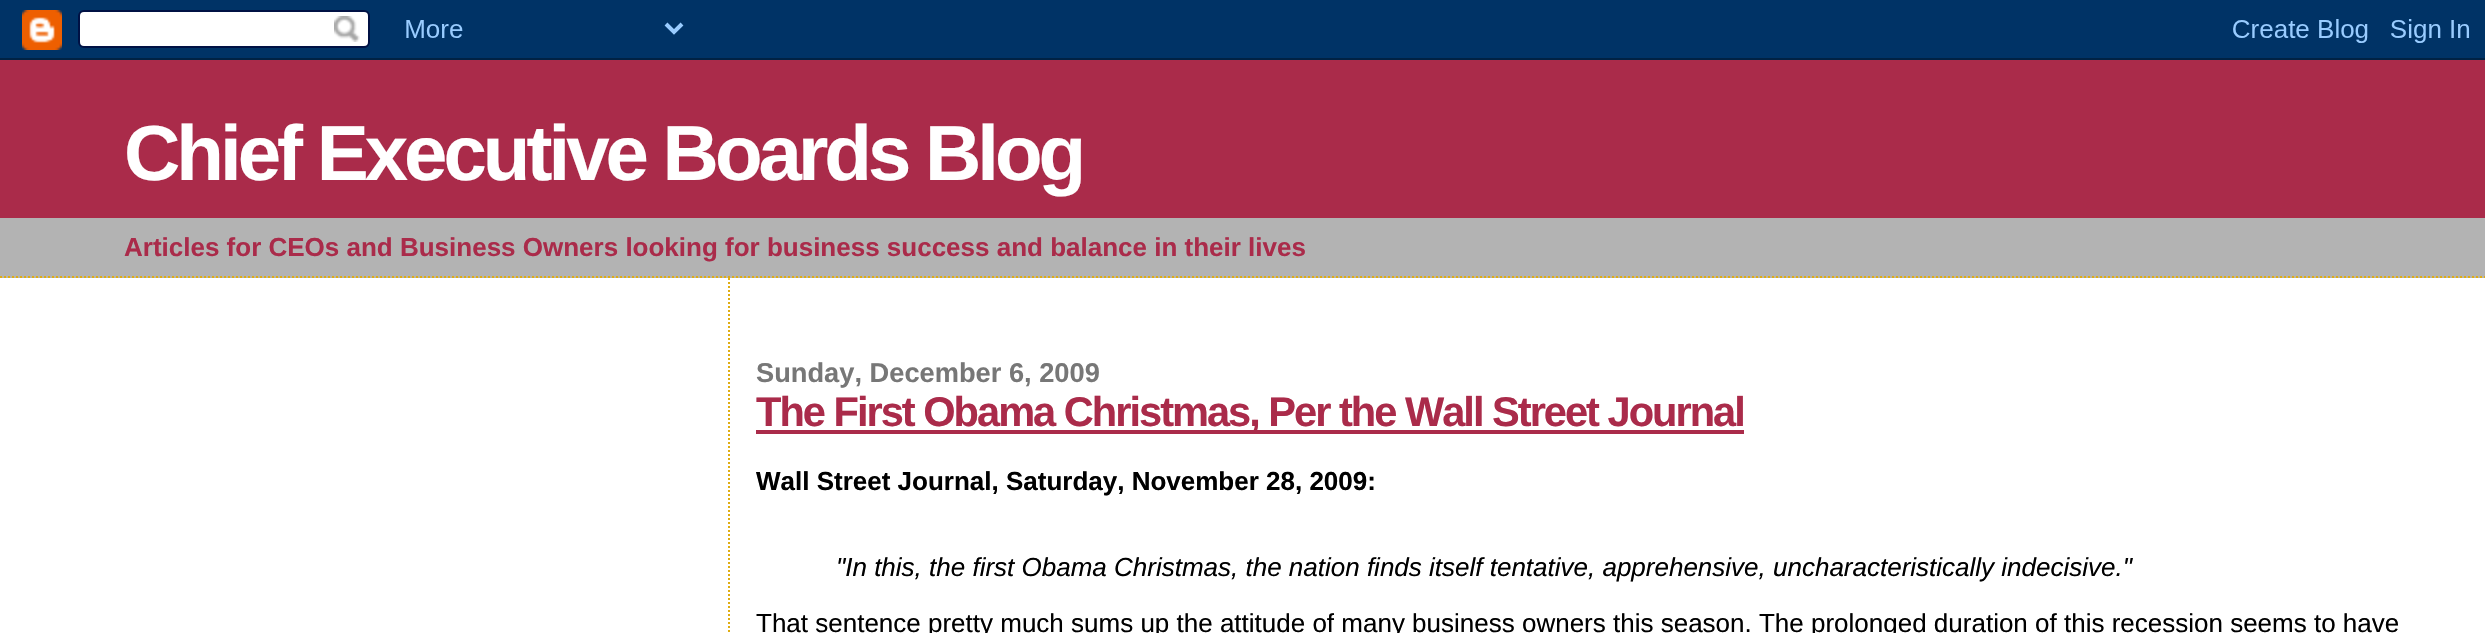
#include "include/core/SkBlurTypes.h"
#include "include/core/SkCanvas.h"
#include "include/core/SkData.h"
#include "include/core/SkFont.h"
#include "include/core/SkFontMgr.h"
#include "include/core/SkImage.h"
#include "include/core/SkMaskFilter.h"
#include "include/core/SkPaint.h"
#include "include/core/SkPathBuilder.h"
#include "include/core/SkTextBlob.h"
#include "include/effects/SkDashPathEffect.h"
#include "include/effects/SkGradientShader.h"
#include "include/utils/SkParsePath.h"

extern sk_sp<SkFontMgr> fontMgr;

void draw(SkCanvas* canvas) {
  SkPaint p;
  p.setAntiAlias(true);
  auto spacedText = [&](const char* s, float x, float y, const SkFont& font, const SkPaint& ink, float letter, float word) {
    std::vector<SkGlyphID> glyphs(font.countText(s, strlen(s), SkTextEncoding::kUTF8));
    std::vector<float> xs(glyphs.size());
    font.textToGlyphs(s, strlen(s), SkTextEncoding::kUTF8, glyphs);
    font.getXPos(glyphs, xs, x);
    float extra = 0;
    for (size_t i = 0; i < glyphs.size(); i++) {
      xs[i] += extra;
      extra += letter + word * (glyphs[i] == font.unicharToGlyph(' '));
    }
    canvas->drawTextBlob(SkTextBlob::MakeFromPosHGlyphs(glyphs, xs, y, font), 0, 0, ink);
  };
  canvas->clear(SK_ColorWHITE);
  canvas->drawImageRect(SkImages::DeferredFromEncodedData(SkData::MakeFromFileName("images/1.png")), SkRect::MakeLTRB(0, 0, 2485, 60), SkSamplingOptions());
  p.setColor(SkColorSetRGB(179, 179, 179));
  canvas->drawRect(SkRect::MakeLTRB(0, 218, 2485, 278), p);
  p.setStyle(SkPaint::kStroke_Style);
  p.setStrokeWidth(2);
  p.setColor(SkColorSetRGB(224, 173, 18));
  p.setPathEffect(SkDashPathEffect::Make({{2, 2}}, 0));
  canvas->drawPath(SkPathBuilder().moveTo(0, 277).lineTo(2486, 277).detach(), p);
  p.setPathEffect(nullptr);
  p.setStyle(SkPaint::kFill_Style);
  p.setColor(SkColorSetRGB(170, 43, 74));
  canvas->drawRect(SkRect::MakeLTRB(0, 60, 2485, 218), p);
  p.setStyle(SkPaint::kStroke_Style);
  p.setColor(SkColorSetRGB(224, 173, 18));
  p.setPathEffect(SkDashPathEffect::Make({{2, 2}}, 0));
  canvas->drawPath(SkPathBuilder().moveTo(729, 278).lineTo(729, 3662).detach(), p);
  p.setPathEffect(nullptr);
  p.setStyle(SkPaint::kFill_Style);
  p.setColor(SkColorSetRGB(170, 43, 74));
  canvas->drawRect(SkRect::MakeLTRB(756, 430, 1744, 434), p);
  SkFont font1(fontMgr->matchFamilyStyle("Liberation Sans", SkFontStyle::Bold()), 78);
  font1.setSubpixel(true);
  p.setColor(SK_ColorWHITE);
  spacedText("Chief Executive Boards Blog", 124, 180, font1, p, -4, 0);
  SkFont font2(fontMgr->matchFamilyStyle("Liberation Sans", SkFontStyle::Bold()), 26);
  font2.setSubpixel(true);
  p.setColor(SkColorSetRGB(170, 43, 74));
  canvas->drawString("Articles for CEOs and Business Owners looking for business success and balance in their lives", 124, 256, font2, p);
  SkFont font3(fontMgr->matchFamilyStyle("Liberation Sans", SkFontStyle::Bold()), 27.25f);
  font3.setSubpixel(true);
  p.setColor(SkColorSetRGB(119, 119, 119));
  canvas->drawString("Sunday, December 6, 2009", 756, 382, font3, p);
  SkFont font4(fontMgr->matchFamilyStyle("Liberation Sans", SkFontStyle::Bold()), 41.6f);
  font4.setSubpixel(true);
  p.setColor(SkColorSetRGB(170, 43, 74));
  spacedText("The First Obama Christmas, Per the Wall Street Journal", 756, 426, font4, p, -2, 0);
  p.setColor(SK_ColorBLACK);
  canvas->drawString("Wall Street Journal, Saturday, November 28, 2009:", 756, 490, font2, p);
  SkFont font5(fontMgr->matchFamilyStyle("Liberation Sans", SkFontStyle::Italic()), 26);
  font5.setSubpixel(true);
  canvas->drawString("\"In this, the first Obama Christmas, the nation finds itself tentative, apprehensive, uncharacteristically indecisive.\"", 836, 576, font5, p);
  SkFont font6(fontMgr->matchFamilyStyle("Liberation Sans", SkFontStyle::Normal()), 26);
  font6.setSubpixel(true);
  canvas->drawString("That sentence pretty much sums up the attitude of many business owners this season. The prolonged duration of this recession seems to have", 756, 632, font6, p);
}
